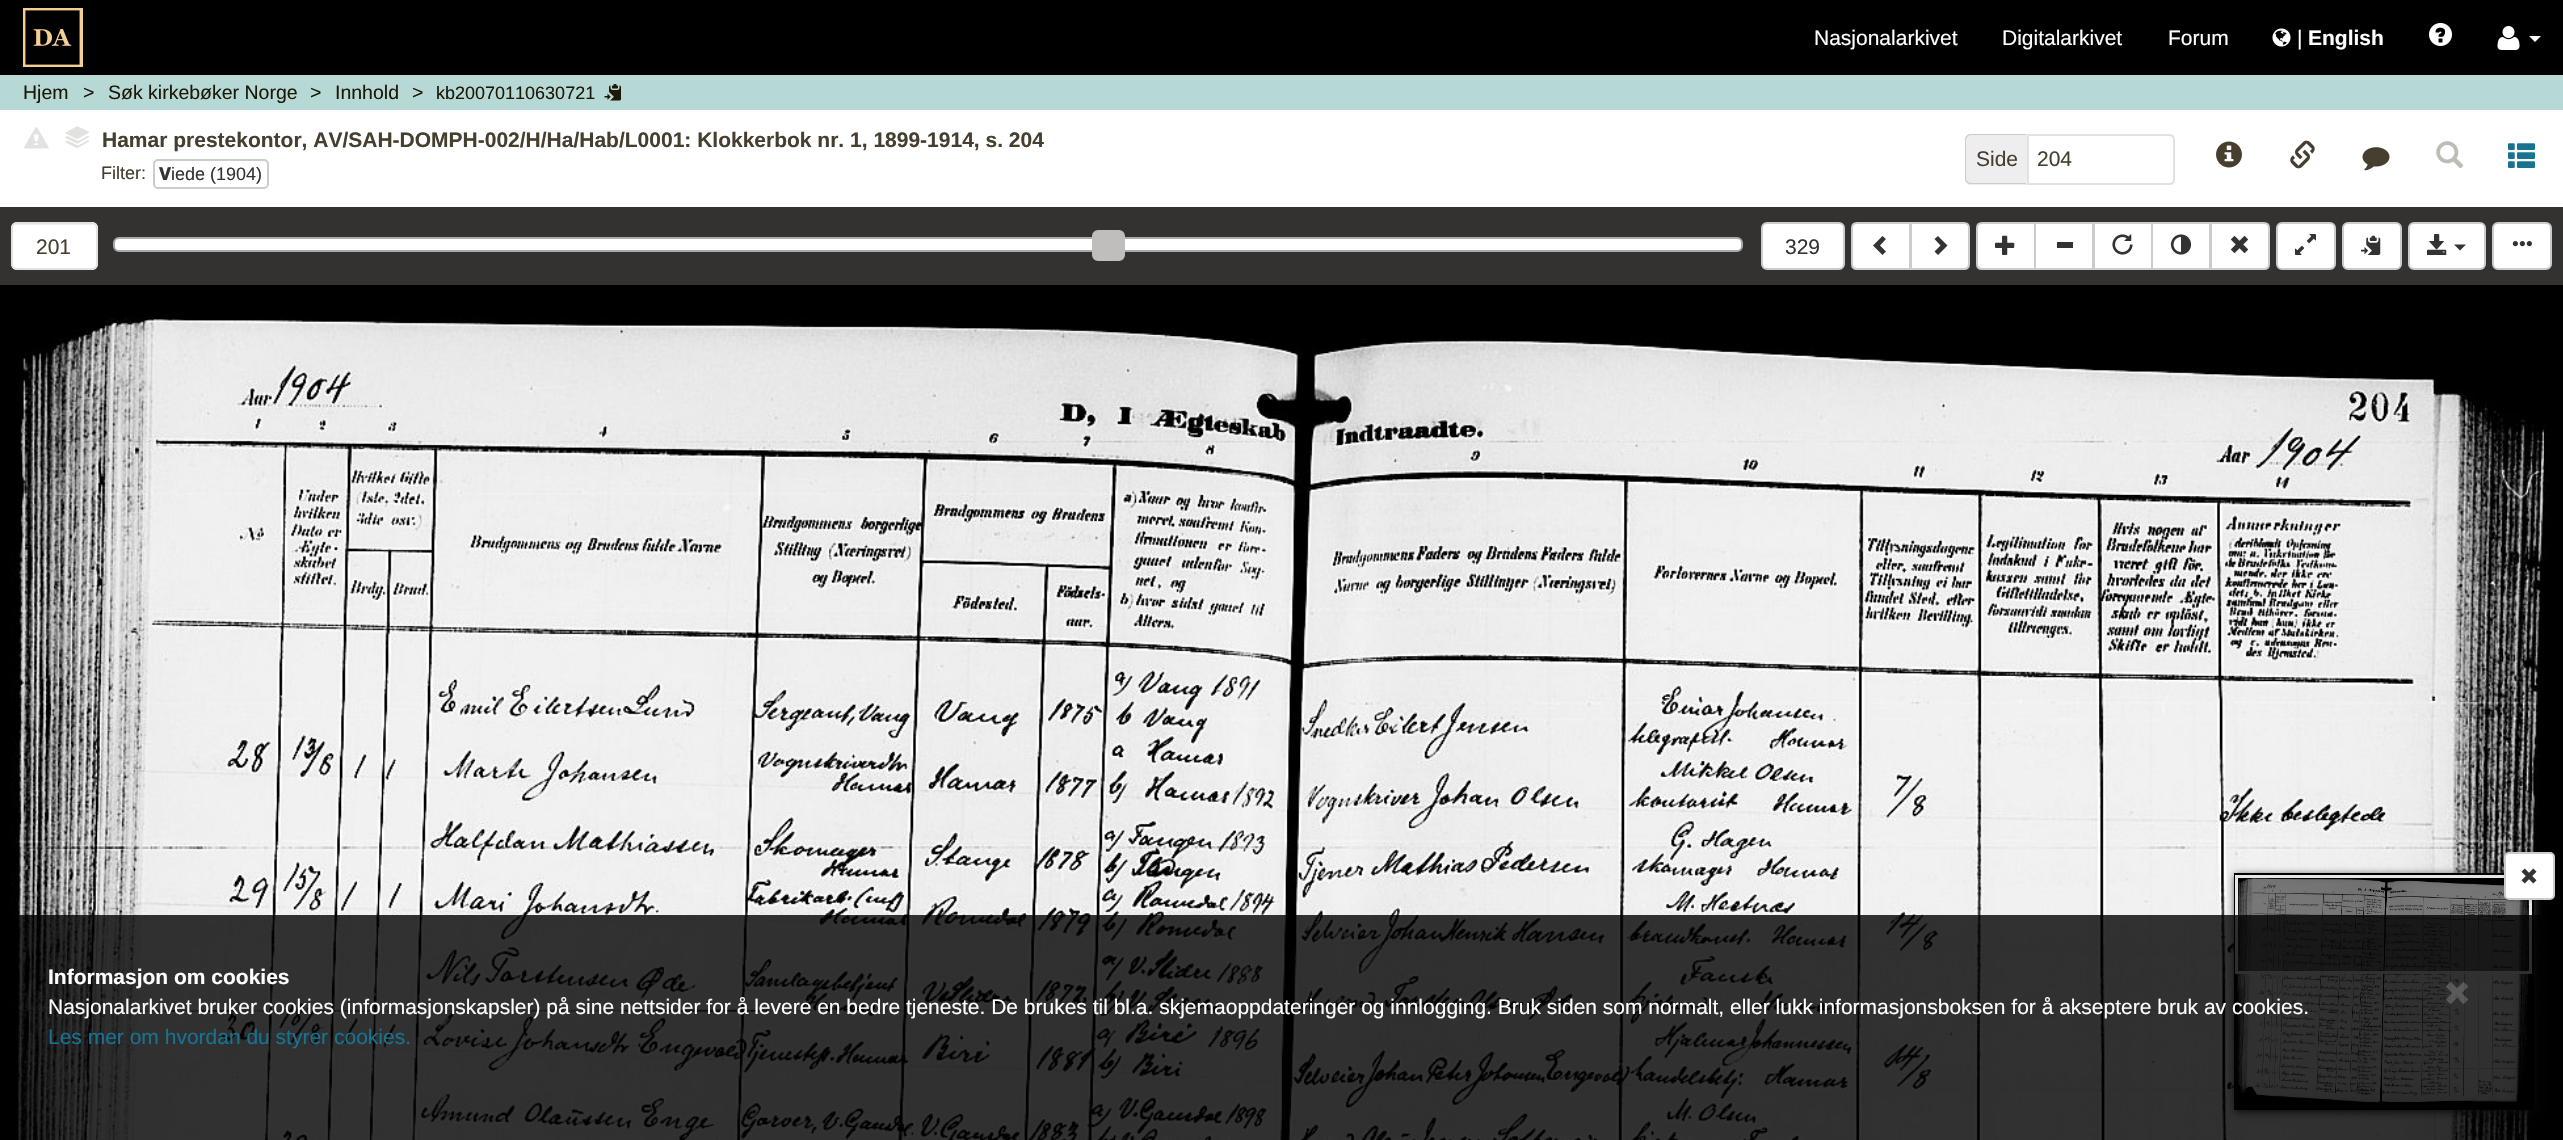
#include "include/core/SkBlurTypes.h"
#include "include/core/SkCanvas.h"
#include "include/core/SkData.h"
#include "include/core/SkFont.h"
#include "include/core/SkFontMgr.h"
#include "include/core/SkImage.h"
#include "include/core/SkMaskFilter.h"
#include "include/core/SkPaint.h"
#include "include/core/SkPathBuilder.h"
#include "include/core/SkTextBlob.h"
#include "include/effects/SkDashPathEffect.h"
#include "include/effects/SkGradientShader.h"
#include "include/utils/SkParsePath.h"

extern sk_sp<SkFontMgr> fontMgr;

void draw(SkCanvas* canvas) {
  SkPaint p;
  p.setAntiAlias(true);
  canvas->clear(SkColorSetRGB(182, 217, 214));
  p.setColor(SK_ColorBLACK);
  canvas->drawRect(SkRect::MakeLTRB(0, 0, 2563, 75), p);
  canvas->drawImageRect(SkImages::DeferredFromEncodedData(SkData::MakeFromFileName("images/1.png")), SkRect::MakeLTRB(23, 8, 83, 67), SkSamplingOptions());
  canvas->drawImageRect(SkImages::DeferredFromEncodedData(SkData::MakeFromFileName("images/2.png")), SkRect::MakeLTRB(2272, 28, 2291, 47), SkSamplingOptions());
  canvas->drawImageRect(SkImages::DeferredFromEncodedData(SkData::MakeFromFileName("images/3.png")), SkRect::MakeLTRB(2429, 23, 2452, 46), SkSamplingOptions());
  canvas->drawImageRect(SkImages::DeferredFromEncodedData(SkData::MakeFromFileName("images/4.png")), SkRect::MakeLTRB(2497, 26, 2520, 50), SkSamplingOptions());
  p.setColor(SK_ColorWHITE);
  canvas->drawPath(SkPathBuilder().moveTo(2529, 36).lineTo(2541, 36).lineTo(2535, 42).close().detach(), p);
  canvas->drawImageRect(SkImages::DeferredFromEncodedData(SkData::MakeFromFileName("images/5.png")), SkRect::MakeLTRB(604, 84, 621, 101), SkSamplingOptions());
  canvas->drawRect(SkRect::MakeLTRB(0, 110, 2563, 207), p);
  canvas->drawImageRect(SkImages::DeferredFromEncodedData(SkData::MakeFromFileName("images/6.png")), SkRect::MakeLTRB(24, 127, 49, 149), SkSamplingOptions());
  canvas->drawImageRect(SkImages::DeferredFromEncodedData(SkData::MakeFromFileName("images/11.png")), SkRect::MakeLTRB(65, 140, 90, 148), SkSamplingOptions());
  canvas->drawImageRect(SkImages::DeferredFromEncodedData(SkData::MakeFromFileName("images/10.png")), SkRect::MakeLTRB(67, 137, 88, 146), SkSamplingOptions());
  canvas->drawImageRect(SkImages::DeferredFromEncodedData(SkData::MakeFromFileName("images/9.png")), SkRect::MakeLTRB(65, 135, 90, 144), SkSamplingOptions());
  canvas->drawImageRect(SkImages::DeferredFromEncodedData(SkData::MakeFromFileName("images/8.png")), SkRect::MakeLTRB(68, 133, 88, 141), SkSamplingOptions());
  canvas->drawImageRect(SkImages::DeferredFromEncodedData(SkData::MakeFromFileName("images/7.png")), SkRect::MakeLTRB(65, 126, 90, 139), SkSamplingOptions());
  p.setStyle(SkPaint::kStroke_Style);
  p.setStrokeWidth(2);
  p.setColor(SkColorSetRGB(204, 204, 204));
  canvas->drawRoundRect(SkRect::MakeLTRB(154, 160, 268, 188), 4, 4, p);
  p.setStyle(SkPaint::kFill_Style);
  p.setColor(SkColorSetRGB(238, 238, 238));
  canvas->drawPath(SkPathBuilder().moveTo(1971, 134).lineTo(2027, 134).lineTo(2027, 185).lineTo(1971, 185).cubicTo(1967.5f, 185, 1965, 182.5f, 1965, 179).lineTo(1965, 140).cubicTo(1965, 136.5f, 1967.5f, 134, 1971, 134).close().detach(), p);
  p.setColor(SkColorSetRGB(204, 204, 204));
  canvas->drawPath(SkPathBuilder(SkPathFillType::kEvenOdd).moveTo(1971, 134).lineTo(2026, 134).lineTo(2026, 184).lineTo(1971, 184).cubicTo(1968, 184, 1965, 182, 1965, 178).lineTo(1965, 140).cubicTo(1965, 136, 1968, 134, 1971, 134).close().moveTo(1971, 135).lineTo(2026, 135).lineTo(2026, 183).lineTo(1971, 183).cubicTo(1969, 183, 1966, 181, 1966, 178).lineTo(1966, 140).cubicTo(1966, 137, 1969, 135, 1971, 135).close().detach(), p);
  p.setColor(SkColorSetRGB(236, 236, 236));
  canvas->drawPath(SkPathBuilder().moveTo(2028, 136).lineTo(2169, 136).cubicTo(2171, 136, 2174, 139, 2174, 141).lineTo(2174, 140).cubicTo(2174, 137, 2172, 135, 2169, 135).lineTo(2028, 135).close().detach(), p);
  p.setStyle(SkPaint::kStroke_Style);
  p.setColor(SkColorSetRGB(227, 226, 224));
  canvas->drawPath(SkPathBuilder().moveTo(2028, 135).lineTo(2169, 135).cubicTo(2172, 135, 2174, 137, 2174, 140).lineTo(2174, 179).cubicTo(2174, 182, 2172, 184, 2169, 184).lineTo(2028, 184).close().detach(), p);
  canvas->drawImageRect(SkImages::DeferredFromEncodedData(SkData::MakeFromFileName("images/12.png")), SkRect::MakeLTRB(2216, 141, 2242, 168), SkSamplingOptions());
  canvas->drawImageRect(SkImages::DeferredFromEncodedData(SkData::MakeFromFileName("images/13.png")), SkRect::MakeLTRB(2290, 140, 2315, 169), SkSamplingOptions());
  canvas->drawImageRect(SkImages::DeferredFromEncodedData(SkData::MakeFromFileName("images/14.png")), SkRect::MakeLTRB(2362, 147, 2390, 171), SkSamplingOptions());
  canvas->drawImageRect(SkImages::DeferredFromEncodedData(SkData::MakeFromFileName("images/15.png")), SkRect::MakeLTRB(2436, 141, 2464, 169), SkSamplingOptions());
  canvas->drawImageRect(SkImages::DeferredFromEncodedData(SkData::MakeFromFileName("images/16.png")), SkRect::MakeLTRB(2508, 143, 2535, 168), SkSamplingOptions());
  p.setStyle(SkPaint::kFill_Style);
  p.setColor(SkColorSetRGB(51, 50, 49));
  canvas->drawRect(SkRect::MakeLTRB(0, 207, 2563, 285), p);
  p.setColor(SK_ColorWHITE);
  canvas->drawRoundRect(SkRect::MakeLTRB(11, 222, 98, 270), 6, 6, p);
  p.setColor(SkColorSetRGB(236, 236, 236));
  canvas->drawPath(SkPathBuilder().moveTo(16, 225).lineTo(92, 225).cubicTo(94, 225, 96, 227, 96, 230).cubicTo(96, 221, 84, 224, 79, 224).lineTo(29, 224).cubicTo(24, 224, 12, 221, 12, 230).cubicTo(12, 227, 14, 225, 16, 225).close().detach(), p);
  p.setStyle(SkPaint::kStroke_Style);
  p.setColor(SkColorSetRGB(227, 226, 224));
  canvas->drawRoundRect(SkRect::MakeLTRB(12, 223, 97, 269), 5, 5, p);
  p.setStyle(SkPaint::kFill_Style);
  p.setColor(SK_ColorWHITE);
  canvas->drawRoundRect(SkRect::MakeLTRB(114, 238, 1742, 251), 5, 5, p);
  p.setStyle(SkPaint::kStroke_Style);
  p.setColor(SkColorSetRGB(170, 170, 170));
  canvas->drawRoundRect(SkRect::MakeLTRB(114, 238, 1742, 251), 5, 5, p);
  p.setStyle(SkPaint::kFill_Style);
  p.setColor(SkColorSetRGB(191, 190, 189));
  canvas->drawRoundRect(SkRect::MakeLTRB(1093, 231, 1124, 260), 5, 5, p);
  p.setStyle(SkPaint::kStroke_Style);
  canvas->drawRoundRect(SkRect::MakeLTRB(1093, 231, 1124, 260), 5, 5, p);
  p.setStyle(SkPaint::kFill_Style);
  p.setColor(SK_ColorWHITE);
  canvas->drawRoundRect(SkRect::MakeLTRB(1762, 223, 1844, 269), 5, 5, p);
  p.setStyle(SkPaint::kStroke_Style);
  p.setColor(SkColorSetRGB(204, 204, 204));
  canvas->drawRoundRect(SkRect::MakeLTRB(1762, 223, 1844, 269), 5, 5, p);
  p.setStyle(SkPaint::kFill_Style);
  p.setColor(SK_ColorWHITE);
  canvas->drawPath(SkPathBuilder().moveTo(1857, 223).lineTo(1910, 223).lineTo(1910, 269).lineTo(1857, 269).cubicTo(1854, 269, 1852, 267, 1852, 264).lineTo(1852, 228).cubicTo(1852, 225, 1854, 223, 1857, 223).close().detach(), p);
  p.setStyle(SkPaint::kStroke_Style);
  p.setColor(SkColorSetRGB(204, 204, 204));
  canvas->drawPath(SkPathBuilder().moveTo(1857, 223).lineTo(1910, 223).lineTo(1910, 269).lineTo(1857, 269).cubicTo(1854, 269, 1852, 267, 1852, 264).lineTo(1852, 228).cubicTo(1852, 225, 1854, 223, 1857, 223).close().detach(), p);
  p.setStyle(SkPaint::kFill_Style);
  p.setColor(SkColorSetRGB(51, 51, 51));
  canvas->drawPath(SkPathBuilder().moveTo(1886, 239).lineTo(1880, 245.5f).lineTo(1886, 251.5f).lineTo(1882.5f, 255).lineTo(1873, 245.5f).lineTo(1882.5f, 236).close().detach(), p);
  p.setColor(SK_ColorWHITE);
  canvas->drawPath(SkPathBuilder().moveTo(1911, 223).lineTo(1964, 223).cubicTo(1967, 223, 1969, 225, 1969, 228).lineTo(1969, 264).cubicTo(1969, 267, 1967, 269, 1964, 269).lineTo(1911, 269).close().detach(), p);
  p.setStyle(SkPaint::kStroke_Style);
  p.setColor(SkColorSetRGB(204, 204, 204));
  canvas->drawPath(SkPathBuilder().moveTo(1911, 223).lineTo(1964, 223).cubicTo(1967, 223, 1969, 225, 1969, 228).lineTo(1969, 264).cubicTo(1969, 267, 1967, 269, 1964, 269).lineTo(1911, 269).close().detach(), p);
  p.setStyle(SkPaint::kFill_Style);
  p.setColor(SkColorSetRGB(51, 51, 51));
  canvas->drawPath(SkPathBuilder().moveTo(1947.5f, 245.5f).lineTo(1938, 255).lineTo(1934.5f, 251.5f).lineTo(1940.5f, 245.5f).lineTo(1934.5f, 239).lineTo(1938, 236).close().detach(), p);
  p.setColor(SK_ColorWHITE);
  canvas->drawPath(SkPathBuilder().moveTo(1982, 223).lineTo(2035, 223).lineTo(2035, 269).lineTo(1982, 269).cubicTo(1979, 269, 1977, 267, 1977, 264).lineTo(1977, 228).cubicTo(1977, 225, 1979, 223, 1982, 223).close().detach(), p);
  p.setStyle(SkPaint::kStroke_Style);
  p.setColor(SkColorSetRGB(204, 204, 204));
  canvas->drawPath(SkPathBuilder().moveTo(1982, 223).lineTo(2035, 223).lineTo(2035, 269).lineTo(1982, 269).cubicTo(1979, 269, 1977, 267, 1977, 264).lineTo(1977, 228).cubicTo(1977, 225, 1979, 223, 1982, 223).close().detach(), p);
  canvas->drawImageRect(SkImages::DeferredFromEncodedData(SkData::MakeFromFileName("images/17.png")), SkRect::MakeLTRB(1995, 235, 2015, 255), SkSamplingOptions());
  p.setStyle(SkPaint::kFill_Style);
  p.setColor(SK_ColorWHITE);
  canvas->drawRect(SkRect::MakeLTRB(2035, 223, 2093, 269), p);
  p.setStyle(SkPaint::kStroke_Style);
  p.setColor(SkColorSetRGB(204, 204, 204));
  canvas->drawRect(SkRect::MakeLTRB(2035, 223, 2093, 269), p);
  p.setStyle(SkPaint::kFill_Style);
  p.setColor(SkColorSetRGB(51, 51, 51));
  canvas->drawRect(SkRect::MakeLTRB(2057, 242, 2073, 248), p);
  p.setColor(SK_ColorWHITE);
  canvas->drawRect(SkRect::MakeLTRB(2094, 223, 2152, 269), p);
  p.setStyle(SkPaint::kStroke_Style);
  p.setColor(SkColorSetRGB(204, 204, 204));
  canvas->drawRect(SkRect::MakeLTRB(2094, 223, 2152, 269), p);
  canvas->drawImageRect(SkImages::DeferredFromEncodedData(SkData::MakeFromFileName("images/18.png")), SkRect::MakeLTRB(2112, 234, 2133, 255), SkSamplingOptions());
  p.setStyle(SkPaint::kFill_Style);
  p.setColor(SK_ColorWHITE);
  canvas->drawRect(SkRect::MakeLTRB(2152, 223, 2210, 269), p);
  p.setStyle(SkPaint::kStroke_Style);
  p.setColor(SkColorSetRGB(204, 204, 204));
  canvas->drawRect(SkRect::MakeLTRB(2152, 223, 2210, 269), p);
  canvas->drawImageRect(SkImages::DeferredFromEncodedData(SkData::MakeFromFileName("images/19.png")), SkRect::MakeLTRB(2170, 234, 2192, 255), SkSamplingOptions());
  p.setStyle(SkPaint::kFill_Style);
  p.setColor(SK_ColorWHITE);
  canvas->drawPath(SkPathBuilder().moveTo(2211, 223).lineTo(2264, 223).cubicTo(2267, 223, 2269, 225, 2269, 228).lineTo(2269, 264).cubicTo(2269, 267, 2267, 269, 2264, 269).lineTo(2211, 269).close().detach(), p);
  p.setStyle(SkPaint::kStroke_Style);
  p.setColor(SkColorSetRGB(204, 204, 204));
  canvas->drawPath(SkPathBuilder().moveTo(2211, 223).lineTo(2264, 223).cubicTo(2267, 223, 2269, 225, 2269, 228).lineTo(2269, 264).cubicTo(2269, 267, 2267, 269, 2264, 269).lineTo(2211, 269).close().detach(), p);
  canvas->drawImageRect(SkImages::DeferredFromEncodedData(SkData::MakeFromFileName("images/20.png")), SkRect::MakeLTRB(2231, 236, 2248, 253), SkSamplingOptions());
  p.setStyle(SkPaint::kFill_Style);
  p.setColor(SK_ColorWHITE);
  canvas->drawRoundRect(SkRect::MakeLTRB(2277, 223, 2335, 269), 5, 5, p);
  p.setStyle(SkPaint::kStroke_Style);
  p.setColor(SkColorSetRGB(204, 204, 204));
  canvas->drawRoundRect(SkRect::MakeLTRB(2277, 223, 2335, 269), 5, 5, p);
  canvas->drawImageRect(SkImages::DeferredFromEncodedData(SkData::MakeFromFileName("images/21.png")), SkRect::MakeLTRB(2295, 234, 2316, 255), SkSamplingOptions());
  p.setStyle(SkPaint::kFill_Style);
  p.setColor(SK_ColorWHITE);
  canvas->drawRoundRect(SkRect::MakeLTRB(2343, 223, 2401, 269), 5, 5, p);
  p.setStyle(SkPaint::kStroke_Style);
  p.setColor(SkColorSetRGB(204, 204, 204));
  canvas->drawRoundRect(SkRect::MakeLTRB(2343, 223, 2401, 269), 5, 5, p);
  canvas->drawImageRect(SkImages::DeferredFromEncodedData(SkData::MakeFromFileName("images/22.png")), SkRect::MakeLTRB(2361, 235, 2381, 255), SkSamplingOptions());
  p.setStyle(SkPaint::kFill_Style);
  p.setColor(SK_ColorWHITE);
  canvas->drawRoundRect(SkRect::MakeLTRB(2409, 223, 2485, 269), 5, 5, p);
  p.setStyle(SkPaint::kStroke_Style);
  p.setColor(SkColorSetRGB(204, 204, 204));
  canvas->drawRoundRect(SkRect::MakeLTRB(2409, 223, 2485, 269), 5, 5, p);
  canvas->drawImageRect(SkImages::DeferredFromEncodedData(SkData::MakeFromFileName("images/23.png")), SkRect::MakeLTRB(2427, 234, 2447, 255), SkSamplingOptions());
  p.setStyle(SkPaint::kFill_Style);
  p.setColor(SkColorSetRGB(51, 51, 51));
  canvas->drawPath(SkPathBuilder().moveTo(2454, 244.5f).lineTo(2466, 244.5f).lineTo(2460, 250.5f).close().detach(), p);
  p.setColor(SK_ColorWHITE);
  canvas->drawRoundRect(SkRect::MakeLTRB(2493, 223, 2551, 269), 5, 5, p);
  p.setStyle(SkPaint::kStroke_Style);
  p.setColor(SkColorSetRGB(204, 204, 204));
  canvas->drawRoundRect(SkRect::MakeLTRB(2493, 223, 2551, 269), 5, 5, p);
  canvas->drawImageRect(SkImages::DeferredFromEncodedData(SkData::MakeFromFileName("images/24.png")), SkRect::MakeLTRB(2512, 241, 2532, 247), SkSamplingOptions());
  canvas->drawImageRect(SkImages::DeferredFromEncodedData(SkData::MakeFromFileName("images/25.png")), SkRect::MakeLTRB(0, 285, 2563, 1140), SkSamplingOptions());
  p.setStyle(SkPaint::kFill_Style);
  p.setColor(SkColorSetRGB(50, 50, 50));
  p.setMaskFilter(SkMaskFilter::MakeBlur(kNormal_SkBlurStyle, 4));
  canvas->drawRect(SkRect::MakeLTRB(2235, 875, 2535, 1112), p);
  p.setMaskFilter(nullptr);
  p.setStyle(SkPaint::kStroke_Style);
  p.setColor(SK_ColorBLACK);
  canvas->drawRect(SkRect::MakeLTRB(2235, 874, 2533, 1109), p);
  canvas->drawImageRect(SkImages::DeferredFromEncodedData(SkData::MakeFromFileName("images/27.png")), SkRect::MakeLTRB(2236, 875, 2532, 1108), SkSamplingOptions());
  p.setStyle(SkPaint::kFill_Style);
  p.setColor(SkColorSetARGB(128, 0, 0, 0));
  canvas->drawRect(SkRect::MakeLTRB(2237, 878, 2530, 974), p);
  p.setStyle(SkPaint::kStroke_Style);
  p.setStrokeWidth(3);
  p.setColor(SkColorSetARGB(230, 255, 255, 255));
  canvas->drawRect(SkRect::MakeLTRB(2236.5f, 876.5f, 2530.5f, 972.5f), p);
  p.setStyle(SkPaint::kFill_Style);
  p.setColor(SkColorSetARGB(26, 0, 0, 0));
  p.setMaskFilter(SkMaskFilter::MakeBlur(kNormal_SkBlurStyle, 1));
  canvas->drawRoundRect(SkRect::MakeLTRB(2504, 854, 2555, 902), 5, 5, p);
  p.setMaskFilter(nullptr);
  p.setColor(SK_ColorWHITE);
  canvas->drawRoundRect(SkRect::MakeLTRB(2505, 853, 2554, 899), 4, 4, p);
  p.setStyle(SkPaint::kStroke_Style);
  p.setStrokeWidth(2);
  p.setColor(SkColorSetRGB(204, 204, 204));
  canvas->drawRoundRect(SkRect::MakeLTRB(2505, 853, 2554, 899), 4, 4, p);
  canvas->drawImageRect(SkImages::DeferredFromEncodedData(SkData::MakeFromFileName("images/26.png")), SkRect::MakeLTRB(2521, 868, 2537, 884), SkSamplingOptions());
  p.setStyle(SkPaint::kFill_Style);
  p.setColor(SkColorSetARGB(204, 0, 0, 0));
  canvas->drawRect(SkRect::MakeLTRB(10, 915, 2541, 1140), p);
  canvas->drawImageRect(SkImages::DeferredFromEncodedData(SkData::MakeFromFileName("images/28.png")), SkRect::MakeLTRB(2446, 982, 2468, 1004), SkSamplingOptions());
  SkFont font1(fontMgr->matchFamilyStyle("Liberation Sans", SkFontStyle::Normal()), 21);
  font1.setSubpixel(true);
  p.setColor(SK_ColorWHITE);
  canvas->drawString("Nasjonalarkivet", 1814, 45, font1, p);
  canvas->drawString("Digitalarkivet", 2002, 45, font1, p);
  canvas->drawString("Forum", 2168, 45, font1, p);
  canvas->drawString("|", 2297, 45, font1, p);
  SkFont font2(fontMgr->matchFamilyStyle("Liberation Sans", SkFontStyle::Bold()), 21);
  font2.setSubpixel(true);
  canvas->drawString("English", 2308, 45, font2, p);
  SkFont font3(fontMgr->matchFamilyStyle("Liberation Sans", SkFontStyle::Normal()), 19.5f);
  font3.setSubpixel(true);
  p.setColor(SkColorSetRGB(29, 23, 5));
  canvas->drawString("Hjem", 23, 99, font3, p);
  canvas->drawString(">", 83, 99, font3, p);
  canvas->drawString("Søk kirkebøker Norge", 108, 99, font3, p);
  canvas->drawString(">", 310, 99, font3, p);
  canvas->drawString("Innhold", 335, 99, font3, p);
  canvas->drawString(">", 412, 99, font3, p);
  SkFont font4(fontMgr->matchFamilyStyle("Liberation Sans", SkFontStyle::Normal()), 18);
  font4.setSubpixel(true);
  canvas->drawString("kb20070110630721", 436, 99, font4, p);
  p.setColor(SkColorSetRGB(70, 62, 47));
  canvas->drawString("Hamar prestekontor, AV/SAH-DOMPH-002/H/Ha/Hab/L0001: Klokkerbok nr. 1, 1899-1914, s. 204", 102, 147, font2, p);
  canvas->drawString("Filter:", 101, 179, font4, p);
  SkFont font5(fontMgr->matchFamilyStyle("Noto Sans", SkFontStyle(800, SkFontStyle::kNormal_Width, SkFontStyle::kUpright_Slant)), 18);
  font5.setSubpixel(true);
  p.setColor(SkColorSetRGB(51, 51, 51));
  canvas->drawString("V", 159, 180, font5, p);
  canvas->drawString("iede (1904)", 171, 180, font4, p);
  p.setColor(SkColorSetRGB(70, 62, 47));
  canvas->drawString("Side", 1976, 166, font1, p);
  canvas->drawString("204", 2037, 166, font1, p);
  canvas->drawString("201", 36, 254, font1, p);
  p.setColor(SkColorSetRGB(51, 51, 51));
  canvas->drawString("329", 1785, 254, font1, p);
  p.setColor(SK_ColorWHITE);
  canvas->drawString("Informasjon om cookies", 48, 984, font2, p);
  canvas->drawString("Nasjonalarkivet bruker cookies (informasjonskapsler) på sine nettsider for å levere en bedre tjeneste. De brukes til bl.a. skjemaoppdateringer og innlogging. Bruk siden som normalt, eller lukk informasjonsboksen for å akseptere bruk av cookies.", 48, 1014, font1, p);
  p.setColor(SkColorSetRGB(23, 115, 145));
  canvas->drawString("Les mer om hvordan du styrer cookies.", 48, 1044, font1, p);
}
